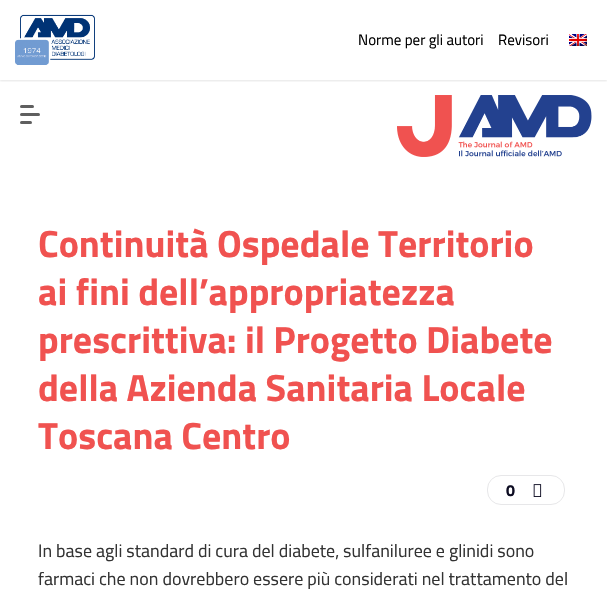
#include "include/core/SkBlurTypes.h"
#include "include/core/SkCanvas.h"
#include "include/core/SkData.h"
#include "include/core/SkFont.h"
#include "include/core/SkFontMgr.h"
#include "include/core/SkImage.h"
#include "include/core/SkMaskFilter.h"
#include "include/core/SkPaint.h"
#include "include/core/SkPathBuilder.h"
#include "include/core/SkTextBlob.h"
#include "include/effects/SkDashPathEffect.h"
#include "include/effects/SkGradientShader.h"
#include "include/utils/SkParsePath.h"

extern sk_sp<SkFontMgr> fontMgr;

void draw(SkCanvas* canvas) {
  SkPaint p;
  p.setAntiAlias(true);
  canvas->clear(SK_ColorWHITE);
  canvas->save();
  canvas->clipRect(SkRect::MakeLTRB(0, 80, 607, 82));
  p.setColor(SkColorSetARGB(26, 0, 0, 0));
  p.setMaskFilter(SkMaskFilter::MakeBlur(kNormal_SkBlurStyle, 1));
  canvas->drawRect(SkRect::MakeLTRB(0, 1, 607, 81), p);
  p.setMaskFilter(nullptr);
  canvas->restore();
  canvas->drawImageRect(SkImages::DeferredFromEncodedData(SkData::MakeFromFileName("images/1.png")), SkRect::MakeLTRB(15, 14, 95, 65), SkSamplingOptions());
  canvas->drawImageRect(SkImages::DeferredFromEncodedData(SkData::MakeFromFileName("images/2.png")), SkRect::MakeLTRB(569, 34, 587, 46), SkSamplingOptions());
  p.setColor(SkColorSetRGB(95, 95, 95));
  canvas->drawRoundRect(SkRect::MakeLTRB(20, 105, 34, 108), 1.5f, 1.5f, p);
  canvas->drawRoundRect(SkRect::MakeLTRB(20, 113, 40, 116), 1.5f, 1.5f, p);
  canvas->drawRoundRect(SkRect::MakeLTRB(20, 121, 32, 124), 1.5f, 1.5f, p);
  canvas->drawImageRect(SkImages::DeferredFromEncodedData(SkData::MakeFromFileName("images/3.png")), SkRect::MakeLTRB(397, 95, 592, 157), SkSamplingOptions());
  p.setStyle(SkPaint::kStroke_Style);
  p.setStrokeWidth(1);
  p.setColor(SkColorSetRGB(231, 231, 233));
  canvas->drawRoundRect(SkRect::MakeLTRB(487.5f, 475.5f, 564.5f, 504.5f), 13.5f, 13.5f, p);
  canvas->drawImageRect(SkImages::DeferredFromEncodedData(SkData::MakeFromFileName("images/4.png")), SkRect::MakeLTRB(533, 484, 542, 497), SkSamplingOptions());
  SkFont font1(fontMgr->matchFamilyStyle("Titillium Web", SkFontStyle::Normal()), 15);
  font1.setSubpixel(true);
  p.setStyle(SkPaint::kFill_Style);
  p.setColor(SK_ColorBLACK);
  canvas->drawString("Norme per gli autori", 358, 45, font1, p);
  canvas->drawString("Revisori", 498, 45, font1, p);
  SkFont font2(fontMgr->matchFamilyStyle("Titillium Web", SkFontStyle::Bold()), 38);
  font2.setSubpixel(true);
  p.setColor(SkColorSetRGB(240, 82, 80));
  canvas->drawString("Continuità Ospedale Territorio", 38, 257, font2, p);
  canvas->drawString("ai fini dell’appropriatezza", 38, 305, font2, p);
  canvas->drawString("prescrittiva: il Progetto Diabete", 38, 353, font2, p);
  canvas->drawString("della Azienda Sanitaria Locale", 38, 401, font2, p);
  canvas->drawString("Toscana Centro", 38, 449, font2, p);
  SkFont font3(fontMgr->matchFamilyStyle("Titillium Web", SkFontStyle::Bold()), 16);
  font3.setSubpixel(true);
  p.setColor(SkColorSetRGB(13, 12, 34));
  canvas->drawString("0", 506, 496, font3, p);
  SkFont font4(fontMgr->matchFamilyStyle("Titillium Web", SkFontStyle::Normal()), 18);
  font4.setSubpixel(true);
  p.setColor(SkColorSetRGB(51, 51, 51));
  canvas->drawString("In base agli standard di cura del diabete, sulfaniluree e glinidi sono", 38, 557, font4, p);
  canvas->drawString("farmaci che non dovrebbero essere più considerati nel trattamento del", 38, 585, font4, p);
}
